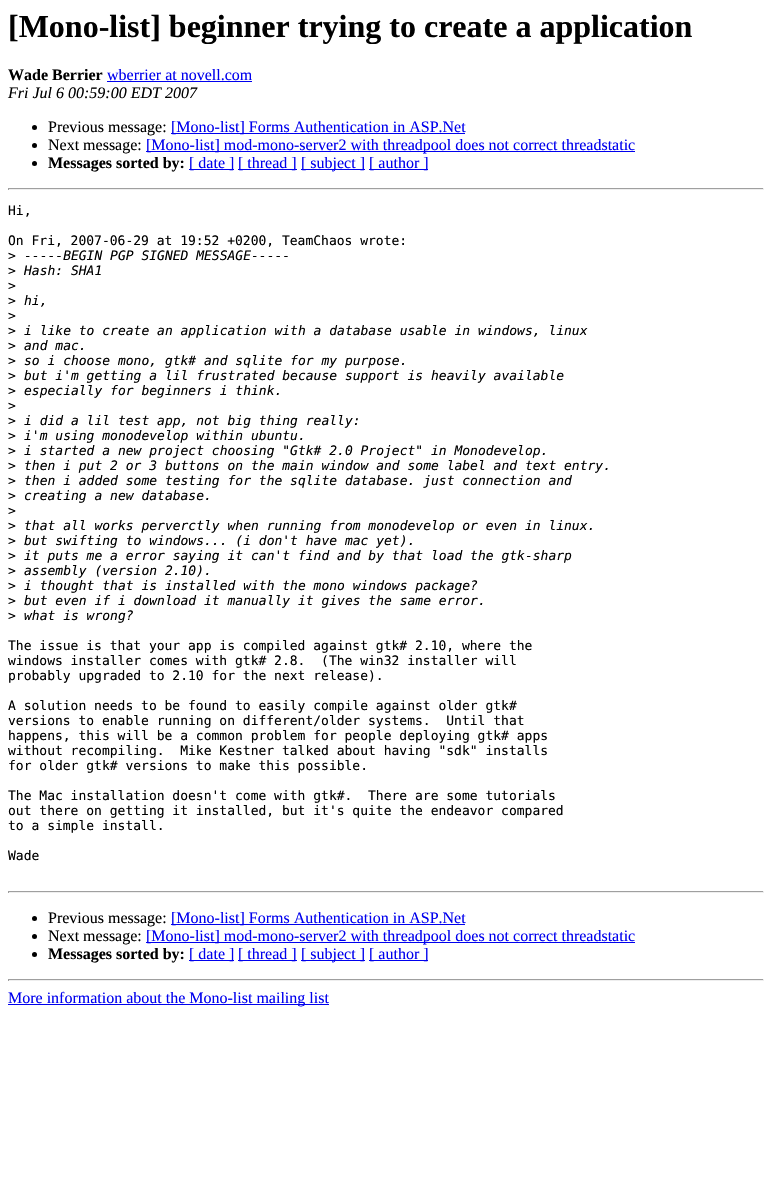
#include "include/core/SkBlurTypes.h"
#include "include/core/SkCanvas.h"
#include "include/core/SkData.h"
#include "include/core/SkFont.h"
#include "include/core/SkFontMgr.h"
#include "include/core/SkImage.h"
#include "include/core/SkMaskFilter.h"
#include "include/core/SkPaint.h"
#include "include/core/SkPathBuilder.h"
#include "include/core/SkTextBlob.h"
#include "include/effects/SkDashPathEffect.h"
#include "include/effects/SkGradientShader.h"
#include "include/utils/SkParsePath.h"

extern sk_sp<SkFontMgr> fontMgr;

void draw(SkCanvas* canvas) {
  SkPaint p;
  p.setAntiAlias(true);
  canvas->clear(SK_ColorWHITE);
  p.setColor(SkColorSetRGB(0, 0, 238));
  canvas->drawRect(SkRect::MakeLTRB(107, 81, 252, 82), p);
  p.setColor(SK_ColorBLACK);
  canvas->drawCircle(34.5f, 127.5f, 2.5f, p);
  p.setColor(SkColorSetRGB(0, 0, 238));
  canvas->drawRect(SkRect::MakeLTRB(171, 133, 465, 134), p);
  p.setColor(SK_ColorBLACK);
  canvas->drawCircle(34.5f, 145.5f, 2.5f, p);
  p.setColor(SkColorSetRGB(0, 0, 238));
  canvas->drawRect(SkRect::MakeLTRB(146, 151, 635, 152), p);
  p.setColor(SK_ColorBLACK);
  canvas->drawCircle(34.5f, 163.5f, 2.5f, p);
  p.setColor(SkColorSetRGB(0, 0, 238));
  canvas->drawRect(SkRect::MakeLTRB(189, 169, 234, 170), p);
  canvas->drawRect(SkRect::MakeLTRB(238, 169, 297, 170), p);
  canvas->drawRect(SkRect::MakeLTRB(301, 169, 365, 170), p);
  canvas->drawRect(SkRect::MakeLTRB(369, 169, 428, 170), p);
  p.setColor(SkColorSetRGB(159, 159, 159));
  canvas->drawRect(SkRect::MakeLTRB(8, 188, 764, 189), p);
  p.setColor(SkColorSetRGB(238, 238, 238));
  canvas->drawRect(SkRect::MakeLTRB(763, 188, 764, 190), p);
  canvas->drawRect(SkRect::MakeLTRB(8, 189, 764, 190), p);
  p.setColor(SkColorSetRGB(159, 159, 159));
  canvas->drawRect(SkRect::MakeLTRB(8, 188, 9, 190), p);
  canvas->drawRect(SkRect::MakeLTRB(8, 891, 764, 892), p);
  p.setColor(SkColorSetRGB(238, 238, 238));
  canvas->drawRect(SkRect::MakeLTRB(763, 891, 764, 893), p);
  canvas->drawRect(SkRect::MakeLTRB(8, 892, 764, 893), p);
  p.setColor(SkColorSetRGB(159, 159, 159));
  canvas->drawRect(SkRect::MakeLTRB(8, 891, 9, 893), p);
  p.setColor(SK_ColorBLACK);
  canvas->drawCircle(34.5f, 918.5f, 2.5f, p);
  p.setColor(SkColorSetRGB(0, 0, 238));
  canvas->drawRect(SkRect::MakeLTRB(171, 924, 465, 925), p);
  p.setColor(SK_ColorBLACK);
  canvas->drawCircle(34.5f, 936.5f, 2.5f, p);
  p.setColor(SkColorSetRGB(0, 0, 238));
  canvas->drawRect(SkRect::MakeLTRB(146, 942, 635, 943), p);
  p.setColor(SK_ColorBLACK);
  canvas->drawCircle(34.5f, 954.5f, 2.5f, p);
  p.setColor(SkColorSetRGB(0, 0, 238));
  canvas->drawRect(SkRect::MakeLTRB(189, 960, 234, 961), p);
  canvas->drawRect(SkRect::MakeLTRB(238, 960, 297, 961), p);
  canvas->drawRect(SkRect::MakeLTRB(301, 960, 365, 961), p);
  canvas->drawRect(SkRect::MakeLTRB(369, 960, 428, 961), p);
  p.setColor(SkColorSetRGB(159, 159, 159));
  canvas->drawRect(SkRect::MakeLTRB(8, 979, 764, 980), p);
  p.setColor(SkColorSetRGB(238, 238, 238));
  canvas->drawRect(SkRect::MakeLTRB(763, 979, 764, 981), p);
  canvas->drawRect(SkRect::MakeLTRB(8, 980, 764, 981), p);
  p.setColor(SkColorSetRGB(159, 159, 159));
  canvas->drawRect(SkRect::MakeLTRB(8, 979, 9, 981), p);
  p.setColor(SkColorSetRGB(0, 0, 238));
  canvas->drawRect(SkRect::MakeLTRB(8, 1004, 329, 1005), p);
  SkFont font1(fontMgr->matchFamilyStyle("Liberation Serif", SkFontStyle::Bold()), 32);
  font1.setSubpixel(true);
  p.setColor(SK_ColorBLACK);
  canvas->drawString("[Mono-list] beginner trying to create a application", 8, 37, font1, p);
  SkFont font2(fontMgr->matchFamilyStyle("Liberation Serif", SkFontStyle::Bold()), 16);
  font2.setSubpixel(true);
  canvas->drawString("Wade Berrier", 8, 80, font2, p);
  SkFont font3(fontMgr->matchFamilyStyle("Liberation Serif", SkFontStyle::Normal()), 16);
  font3.setSubpixel(true);
  p.setColor(SkColorSetRGB(0, 0, 238));
  canvas->drawString("wberrier at novell.com", 107, 80, font3, p);
  SkFont font4(fontMgr->matchFamilyStyle("Liberation Serif", SkFontStyle::Italic()), 16);
  font4.setSubpixel(true);
  p.setColor(SK_ColorBLACK);
  canvas->drawString("Fri Jul 6 00:59:00 EDT 2007", 8, 98, font4, p);
  canvas->drawString("Previous message:", 48, 132, font3, p);
  p.setColor(SkColorSetRGB(0, 0, 238));
  canvas->drawString("[Mono-list] Forms Authentication in ASP.Net", 171, 132, font3, p);
  p.setColor(SK_ColorBLACK);
  canvas->drawString("Next message:", 48, 150, font3, p);
  p.setColor(SkColorSetRGB(0, 0, 238));
  canvas->drawString("[Mono-list] mod-mono-server2 with threadpool does not correct threadstatic", 146, 150, font3, p);
  p.setColor(SK_ColorBLACK);
  canvas->drawString("Messages sorted by:", 48, 168, font2, p);
  p.setColor(SkColorSetRGB(0, 0, 238));
  canvas->drawString("[ date ]", 189, 168, font3, p);
  canvas->drawString("[ thread ]", 238, 168, font3, p);
  canvas->drawString("[ subject ]", 301, 168, font3, p);
  canvas->drawString("[ author ]", 369, 168, font3, p);
  SkFont font5(fontMgr->matchFamilyStyle("DejaVu Sans Mono", SkFontStyle::Normal()), 13);
  font5.setSubpixel(true);
  p.setColor(SK_ColorBLACK);
  canvas->drawString("Hi,", 8, 215, font5, p);
  canvas->drawString("On Fri, 2007-06-29 at 19:52 +0200, TeamChaos wrote:", 8, 245, font5, p);
  canvas->drawString(">", 8, 260, font5, p);
  SkFont font6(fontMgr->matchFamilyStyle("DejaVu Sans Mono", SkFontStyle::Italic()), 13);
  font6.setSubpixel(true);
  canvas->drawString("-----BEGIN PGP SIGNED MESSAGE-----", 24, 260, font6, p);
  canvas->drawString(">", 8, 275, font5, p);
  canvas->drawString("Hash: SHA1", 24, 275, font6, p);
  canvas->drawString(">", 8, 290, font5, p);
  canvas->drawString(">", 8, 305, font5, p);
  canvas->drawString("hi,", 24, 305, font6, p);
  canvas->drawString(">", 8, 320, font5, p);
  canvas->drawString(">", 8, 335, font5, p);
  canvas->drawString("i like to create an application with a database usable in windows, linux", 24, 335, font6, p);
  canvas->drawString(">", 8, 350, font5, p);
  canvas->drawString("and mac.", 24, 350, font6, p);
  canvas->drawString(">", 8, 365, font5, p);
  canvas->drawString("so i choose mono, gtk# and sqlite for my purpose.", 24, 365, font6, p);
  canvas->drawString(">", 8, 380, font5, p);
  canvas->drawString("but i'm getting a lil frustrated because support is heavily available", 24, 380, font6, p);
  canvas->drawString(">", 8, 395, font5, p);
  canvas->drawString("especially for beginners i think.", 24, 395, font6, p);
  canvas->drawString(">", 8, 410, font5, p);
  canvas->drawString(">", 8, 425, font5, p);
  canvas->drawString("i did a lil test app, not big thing really:", 24, 425, font6, p);
  canvas->drawString(">", 8, 440, font5, p);
  canvas->drawString("i'm using monodevelop within ubuntu.", 24, 440, font6, p);
  canvas->drawString(">", 8, 455, font5, p);
  canvas->drawString("i started a new project choosing \"Gtk# 2.0 Project\" in Monodevelop.", 24, 455, font6, p);
  canvas->drawString(">", 8, 470, font5, p);
  canvas->drawString("then i put 2 or 3 buttons on the main window and some label and text entry.", 24, 470, font6, p);
  canvas->drawString(">", 8, 485, font5, p);
  canvas->drawString("then i added some testing for the sqlite database. just connection and", 24, 485, font6, p);
  canvas->drawString(">", 8, 500, font5, p);
  canvas->drawString("creating a new database.", 24, 500, font6, p);
  canvas->drawString(">", 8, 515, font5, p);
  canvas->drawString(">", 8, 530, font5, p);
  canvas->drawString("that all works perverctly when running from monodevelop or even in linux.", 24, 530, font6, p);
  canvas->drawString(">", 8, 545, font5, p);
  canvas->drawString("but swifting to windows... (i don't have mac yet).", 24, 545, font6, p);
  canvas->drawString(">", 8, 560, font5, p);
  canvas->drawString("it puts me a error saying it can't find and by that load the gtk-sharp", 24, 560, font6, p);
  canvas->drawString(">", 8, 575, font5, p);
  canvas->drawString("assembly (version 2.10).", 24, 575, font6, p);
  canvas->drawString(">", 8, 590, font5, p);
  canvas->drawString("i thought that is installed with the mono windows package?", 24, 590, font6, p);
  canvas->drawString(">", 8, 605, font5, p);
  canvas->drawString("but even if i download it manually it gives the same error.", 24, 605, font6, p);
  canvas->drawString(">", 8, 620, font5, p);
  canvas->drawString("what is wrong?", 24, 620, font6, p);
  canvas->drawString("The issue is that your app is compiled against gtk# 2.10, where the", 8, 650, font5, p);
  canvas->drawString("windows installer comes with gtk# 2.8.  (The win32 installer will", 8, 665, font5, p);
  canvas->drawString("probably upgraded to 2.10 for the next release).", 8, 680, font5, p);
  canvas->drawString("A solution needs to be found to easily compile against older gtk#", 8, 710, font5, p);
  canvas->drawString("versions to enable running on different/older systems.  Until that", 8, 725, font5, p);
  canvas->drawString("happens, this will be a common problem for people deploying gtk# apps", 8, 740, font5, p);
  canvas->drawString("without recompiling.  Mike Kestner talked about having \"sdk\" installs", 8, 755, font5, p);
  canvas->drawString("for older gtk# versions to make this possible.", 8, 770, font5, p);
  canvas->drawString("The Mac installation doesn't come with gtk#.  There are some tutorials", 8, 800, font5, p);
  canvas->drawString("out there on getting it installed, but it's quite the endeavor compared", 8, 815, font5, p);
  canvas->drawString("to a simple install.", 8, 830, font5, p);
  canvas->drawString("Wade", 8, 860, font5, p);
  canvas->drawString("Previous message:", 48, 923, font3, p);
  p.setColor(SkColorSetRGB(0, 0, 238));
  canvas->drawString("[Mono-list] Forms Authentication in ASP.Net", 171, 923, font3, p);
  p.setColor(SK_ColorBLACK);
  canvas->drawString("Next message:", 48, 941, font3, p);
  p.setColor(SkColorSetRGB(0, 0, 238));
  canvas->drawString("[Mono-list] mod-mono-server2 with threadpool does not correct threadstatic", 146, 941, font3, p);
  p.setColor(SK_ColorBLACK);
  canvas->drawString("Messages sorted by:", 48, 959, font2, p);
  p.setColor(SkColorSetRGB(0, 0, 238));
  canvas->drawString("[ date ]", 189, 959, font3, p);
  canvas->drawString("[ thread ]", 238, 959, font3, p);
  canvas->drawString("[ subject ]", 301, 959, font3, p);
  canvas->drawString("[ author ]", 369, 959, font3, p);
  canvas->drawString("More information about the Mono-list mailing list", 8, 1003, font3, p);
}
